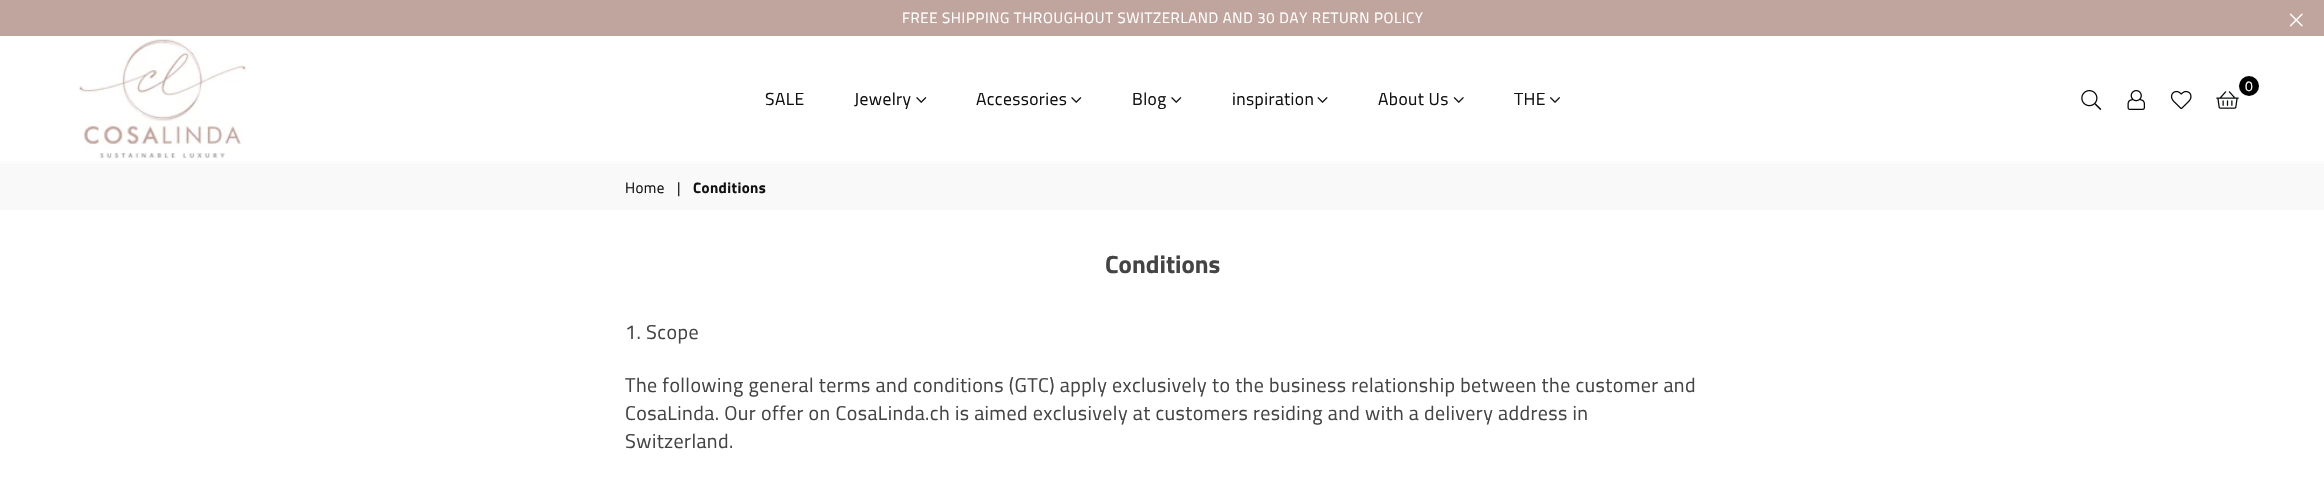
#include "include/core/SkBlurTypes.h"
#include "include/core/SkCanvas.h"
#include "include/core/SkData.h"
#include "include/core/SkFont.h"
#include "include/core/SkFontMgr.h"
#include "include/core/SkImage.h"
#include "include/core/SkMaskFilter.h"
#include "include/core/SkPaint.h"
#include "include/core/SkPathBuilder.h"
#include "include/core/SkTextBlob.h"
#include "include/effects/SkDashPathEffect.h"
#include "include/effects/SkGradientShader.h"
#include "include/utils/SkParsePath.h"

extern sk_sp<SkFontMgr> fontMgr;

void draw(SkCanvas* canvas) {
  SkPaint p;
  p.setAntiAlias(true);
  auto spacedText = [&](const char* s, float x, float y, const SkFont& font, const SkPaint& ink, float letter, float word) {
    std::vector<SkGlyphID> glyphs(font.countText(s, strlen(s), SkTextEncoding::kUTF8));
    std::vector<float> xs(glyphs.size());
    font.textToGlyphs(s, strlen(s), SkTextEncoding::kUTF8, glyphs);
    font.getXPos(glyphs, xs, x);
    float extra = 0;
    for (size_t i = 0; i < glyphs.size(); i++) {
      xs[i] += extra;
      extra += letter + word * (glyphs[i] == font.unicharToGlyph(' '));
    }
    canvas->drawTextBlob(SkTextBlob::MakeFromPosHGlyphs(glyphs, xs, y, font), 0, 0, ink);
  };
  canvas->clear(SK_ColorWHITE);
  p.setColor(SkColorSetRGB(191, 165, 158));
  canvas->drawRect(SkRect::MakeLTRB(0, 0, 2324, 36), p);
  canvas->drawImageRect(SkImages::DeferredFromEncodedData(SkData::MakeFromFileName("images/1.png")), SkRect::MakeLTRB(2289, 13, 2303, 27), SkSamplingOptions());
  p.setColor(SkColorSetRGB(250, 250, 250));
  canvas->drawRect(SkRect::MakeLTRB(0, 161, 2324, 162), p);
  canvas->drawImageRect(SkImages::DeferredFromEncodedData(SkData::MakeFromFileName("images/2.png")), SkRect::MakeLTRB(79, 39, 247, 159), SkSamplingOptions());
  p.setColor(SK_ColorBLACK);
  canvas->drawCircle(2249, 86, 10, p);
  canvas->drawImageRect(SkImages::DeferredFromEncodedData(SkData::MakeFromFileName("images/3.png")), SkRect::MakeLTRB(2216, 91, 2239, 109), SkSamplingOptions());
  canvas->drawImageRect(SkImages::DeferredFromEncodedData(SkData::MakeFromFileName("images/4.png")), SkRect::MakeLTRB(2081, 90, 2102, 110), SkSamplingOptions());
  canvas->drawImageRect(SkImages::DeferredFromEncodedData(SkData::MakeFromFileName("images/5.png")), SkRect::MakeLTRB(2127, 90, 2145, 110), SkSamplingOptions());
  canvas->drawImageRect(SkImages::DeferredFromEncodedData(SkData::MakeFromFileName("images/6.png")), SkRect::MakeLTRB(2170, 90, 2192, 109), SkSamplingOptions());
  canvas->drawImageRect(SkImages::DeferredFromEncodedData(SkData::MakeFromFileName("images/7.png")), SkRect::MakeLTRB(916, 97, 927, 103), SkSamplingOptions());
  canvas->drawImageRect(SkImages::DeferredFromEncodedData(SkData::MakeFromFileName("images/7.png")), SkRect::MakeLTRB(1071, 97, 1082, 103), SkSamplingOptions());
  canvas->drawImageRect(SkImages::DeferredFromEncodedData(SkData::MakeFromFileName("images/7.png")), SkRect::MakeLTRB(1171, 97, 1182, 103), SkSamplingOptions());
  canvas->drawImageRect(SkImages::DeferredFromEncodedData(SkData::MakeFromFileName("images/8.png")), SkRect::MakeLTRB(1317, 97, 1328, 103), SkSamplingOptions());
  canvas->drawImageRect(SkImages::DeferredFromEncodedData(SkData::MakeFromFileName("images/9.png")), SkRect::MakeLTRB(1453, 97, 1464, 103), SkSamplingOptions());
  canvas->drawImageRect(SkImages::DeferredFromEncodedData(SkData::MakeFromFileName("images/10.png")), SkRect::MakeLTRB(1550, 97, 1560, 103), SkSamplingOptions());
  p.setColor(SkColorSetRGB(249, 249, 249));
  canvas->drawRect(SkRect::MakeLTRB(0, 163, 2324, 210), p);
  SkFont font1(fontMgr->matchFamilyStyle("Titillium Web", SkFontStyle::Normal()), 15);
  font1.setSubpixel(true);
  p.setColor(SK_ColorWHITE);
  spacedText("FREE SHIPPING THROUGHOUT SWITZERLAND AND 30 DAY RETURN POLICY", 902, 23, font1, p, 0.62f, 0);
  SkFont font2(fontMgr->matchFamilyStyle("Titillium Web", SkFontStyle::Normal()), 14);
  font2.setSubpixel(true);
  spacedText("0", 2245, 91, font2, p, 0.4f, 0);
  SkFont font3(fontMgr->matchFamilyStyle("Titillium Web", SkFontStyle::Normal()), 17.5f);
  font3.setSubpixel(true);
  p.setColor(SkColorSetRGB(17, 17, 17));
  spacedText("SALE", 765, 105, font3, p, 0.4f, 0);
  spacedText("Jewelry", 854, 105, font3, p, 0.4f, 0);
  spacedText("Accessories", 976, 105, font3, p, 0.4f, 0);
  spacedText("Blog", 1132, 105, font3, p, 0.4f, 0);
  spacedText("inspiration", 1232, 105, font3, p, 0.4f, 0);
  spacedText("About Us", 1378, 105, font3, p, 0.4f, 0);
  spacedText("THE", 1514, 105, font3, p, 0.4f, 0);
  spacedText("Home", 625, 193, font1, p, 0.4f, 0);
  spacedText("|", 677, 193, font1, p, 0.4f, 0);
  SkFont font4(fontMgr->matchFamilyStyle("Titillium Web", SkFontStyle::Bold()), 15);
  font4.setSubpixel(true);
  spacedText("Conditions", 693, 193, font4, p, 0.4f, 0);
  SkFont font5(fontMgr->matchFamilyStyle("Titillium Web", SkFontStyle::Bold()), 25);
  font5.setSubpixel(true);
  p.setColor(SkColorSetRGB(68, 68, 68));
  canvas->drawString("Conditions", 1105, 273, font5, p);
  SkFont font6(fontMgr->matchFamilyStyle("Titillium Web", SkFontStyle::Normal()), 20);
  font6.setSubpixel(true);
  spacedText("1. Scope", 625, 339, font6, p, 0.4f, 0);
  spacedText("The following general terms and conditions (GTC) apply exclusively to the business relationship between the customer and", 625, 392, font6, p, 0.4f, 0);
  spacedText("CosaLinda. Our offer on CosaLinda.ch is aimed exclusively at customers residing and with a delivery address in", 625, 420, font6, p, 0.4f, 0);
  spacedText("Switzerland.", 625, 448, font6, p, 0.4f, 0);
}
